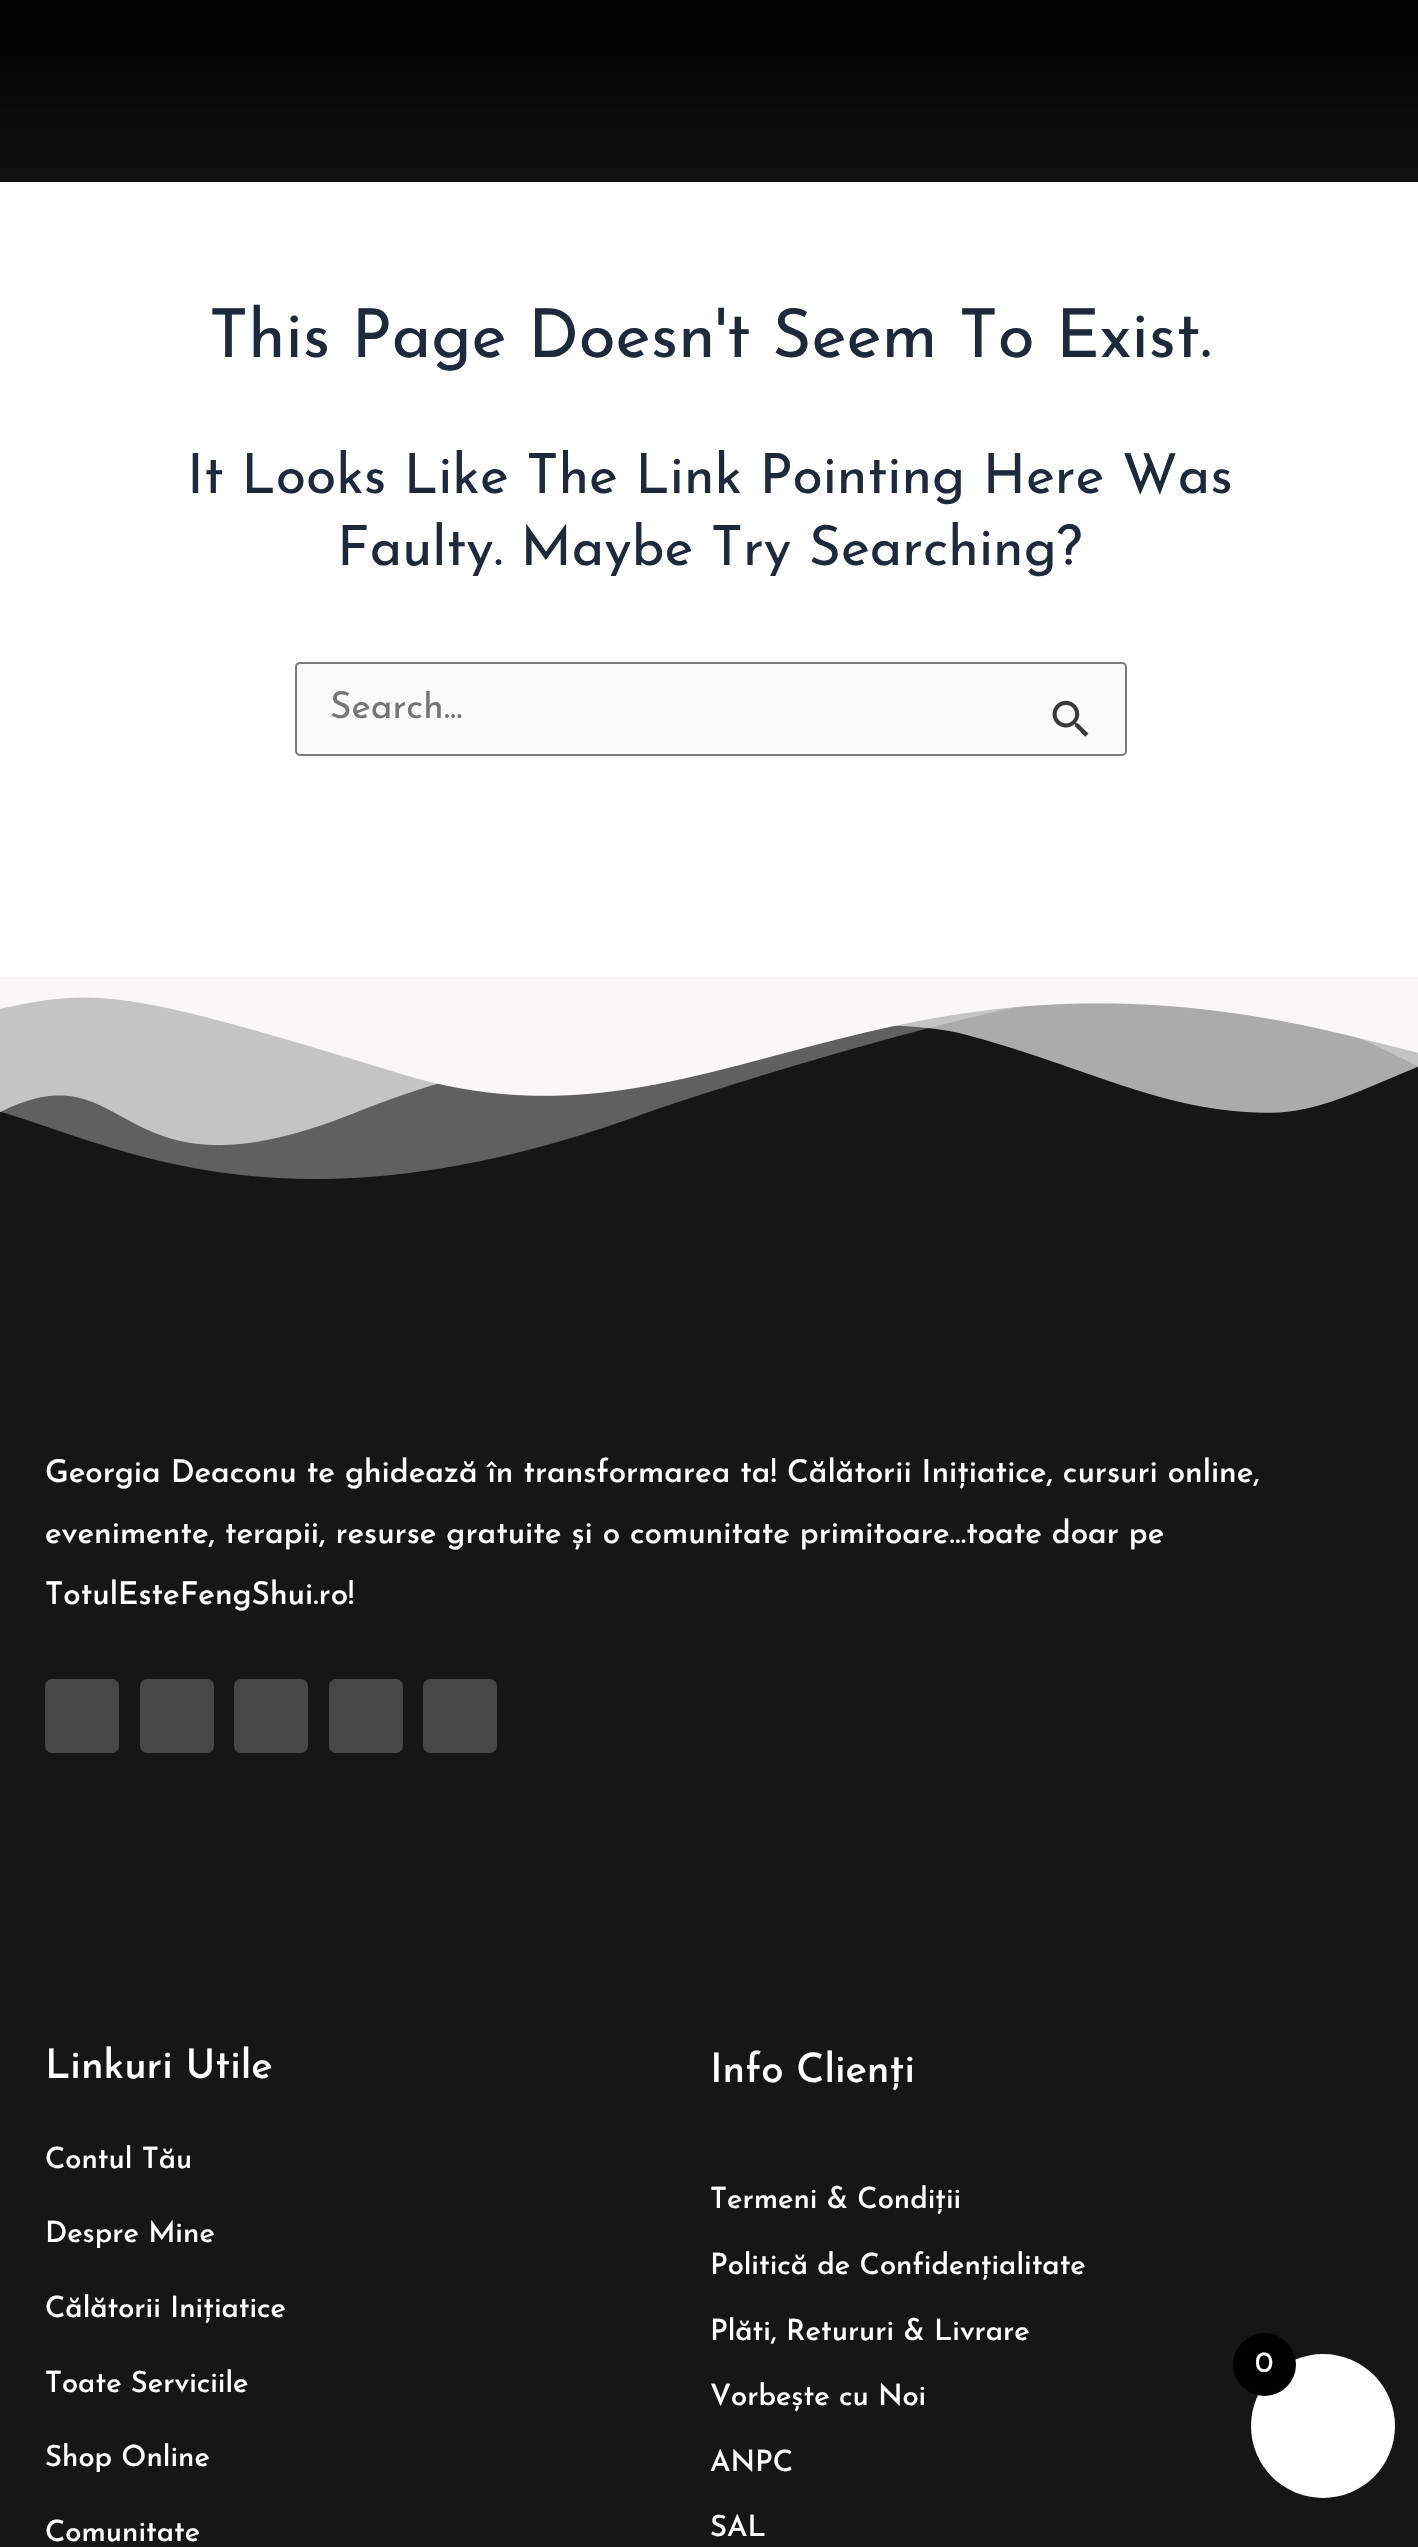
#include "include/core/SkBlurTypes.h"
#include "include/core/SkCanvas.h"
#include "include/core/SkData.h"
#include "include/core/SkFont.h"
#include "include/core/SkFontMgr.h"
#include "include/core/SkImage.h"
#include "include/core/SkMaskFilter.h"
#include "include/core/SkPaint.h"
#include "include/core/SkPathBuilder.h"
#include "include/core/SkTextBlob.h"
#include "include/effects/SkDashPathEffect.h"
#include "include/effects/SkGradientShader.h"
#include "include/utils/SkParsePath.h"

extern sk_sp<SkFontMgr> fontMgr;

void draw(SkCanvas* canvas) {
  SkPaint p;
  p.setAntiAlias(true);
  canvas->clear(SK_ColorWHITE);
  {
    const SkColor colors[] = {SK_ColorBLACK, SkColorSetRGB(17, 16, 16)};
    const float stops[] = {0, 1};
    const SkPoint ends[] = {{710, 0}, {710, 182}};
    p.setShader(SkGradientShader::MakeLinear(ends, colors, stops, 2, SkTileMode::kClamp));
    p.setAlpha(255);
  }
  canvas->drawRect(SkRect::MakeLTRB(0, 0, 1418, 182), p);
  p.setShader(nullptr);
  p.setColor(SkColorSetRGB(250, 250, 250));
  canvas->drawRoundRect(SkRect::MakeLTRB(296, 663, 1126, 755), 4, 4, p);
  p.setStyle(SkPaint::kStroke_Style);
  p.setStrokeWidth(2);
  p.setColor(SkColorSetRGB(123, 123, 123));
  canvas->drawRoundRect(SkRect::MakeLTRB(296, 663, 1126, 755), 4, 4, p);
  canvas->drawImageRect(SkImages::DeferredFromEncodedData(SkData::MakeFromFileName("images/1.png")), SkRect::MakeLTRB(1052, 700, 1089, 737), SkSamplingOptions());
  p.setStyle(SkPaint::kFill_Style);
  p.setColor(SkColorSetRGB(22, 22, 22));
  canvas->drawRect(SkRect::MakeLTRB(0, 997, 1418, 2547), p);
  canvas->drawImageRect(SkImages::DeferredFromEncodedData(SkData::MakeFromFileName("images/2.png")), SkRect::MakeLTRB(0, 977, 1418, 1179), SkSamplingOptions());
  p.setColor(SkColorSetRGB(71, 71, 71));
  canvas->drawRoundRect(SkRect::MakeLTRB(45, 1679, 119, 1753), 7, 7, p);
  canvas->drawRoundRect(SkRect::MakeLTRB(140, 1679, 214, 1753), 7, 7, p);
  canvas->drawRoundRect(SkRect::MakeLTRB(234, 1679, 308, 1753), 7, 7, p);
  canvas->drawRoundRect(SkRect::MakeLTRB(329, 1679, 403, 1753), 7, 7, p);
  canvas->drawRoundRect(SkRect::MakeLTRB(423, 1679, 497, 1753), 7, 7, p);
  p.setColor(SK_ColorWHITE);
  canvas->drawCircle(1323, 2426, 72, p);
  p.setColor(SK_ColorBLACK);
  canvas->drawCircle(1264.5f, 2364.5f, 31.5f, p);
  SkFont font1(fontMgr->matchFamilyStyle("Josefin Sans", SkFontStyle::Normal()), 67.5f);
  font1.setSubpixel(true);
  p.setColor(SkColorSetRGB(30, 41, 59));
  canvas->drawString("This Page Doesn't Seem To Exist.", 209, 357, font1, p);
  SkFont font2(fontMgr->matchFamilyStyle("Josefin Sans", SkFontStyle::Normal()), 55.4f);
  font2.setSubpixel(true);
  canvas->drawString("It Looks Like The Link Pointing Here Was", 187, 493, font2, p);
  canvas->drawString("Faulty. Maybe Try Searching?", 337, 565, font2, p);
  canvas->save();
  canvas->clipRect(SkRect::MakeLTRB(331, 691, 1015, 727));
  SkFont font3(fontMgr->matchFamilyStyle("Josefin Sans", SkFontStyle::Normal()), 37);
  font3.setSubpixel(true);
  p.setColor(SkColorSetRGB(117, 117, 117));
  canvas->drawString("Search...", 330, 718, font3, p);
  canvas->restore();
  SkFont font4(fontMgr->matchFamilyStyle("Josefin Sans", SkFontStyle(500, SkFontStyle::kNormal_Width, SkFontStyle::kUpright_Slant)), 31.5f);
  font4.setSubpixel(true);
  p.setColor(SK_ColorWHITE);
  canvas->drawString("Georgia Deaconu te ghidează în transformarea ta! Călătorii Inițiatice, cursuri online,", 45, 1482, font4, p);
  canvas->drawString("evenimente, terapii, resurse gratuite și o comunitate primitoare…toate doar pe", 45, 1543, font4, p);
  canvas->drawString("TotulEsteFengShui.ro!", 45, 1604, font4, p);
  SkFont font5(fontMgr->matchFamilyStyle("Josefin Sans", SkFontStyle(500, SkFontStyle::kNormal_Width, SkFontStyle::kUpright_Slant)), 40.5f);
  font5.setSubpixel(true);
  canvas->drawString("Linkuri Utile", 45, 2078, font5, p);
  SkFont font6(fontMgr->matchFamilyStyle("Josefin Sans", SkFontStyle(500, SkFontStyle::kNormal_Width, SkFontStyle::kUpright_Slant)), 29.25f);
  font6.setSubpixel(true);
  canvas->drawString("Contul Tău", 45, 2168, font6, p);
  canvas->drawString("Despre Mine", 45, 2242, font6, p);
  canvas->drawString("Călătorii Inițiatice", 45, 2317, font6, p);
  canvas->drawString("Toate Serviciile", 45, 2392, font6, p);
  canvas->drawString("Shop Online", 45, 2466, font6, p);
  canvas->drawString("Comunitate", 45, 2541, font6, p);
  canvas->drawString("Info Clienți", 710, 2082, font5, p);
  canvas->drawString("Termeni & Condiții", 710, 2208, font6, p);
  canvas->drawString("Politică de Confidențialitate", 710, 2274, font6, p);
  canvas->drawString("Plăti, Retururi & Livrare", 710, 2340, font6, p);
  canvas->drawString("Vorbește cu Noi", 710, 2405, font6, p);
  canvas->drawString("ANPC", 710, 2471, font6, p);
  canvas->drawString("SAL", 710, 2536, font6, p);
  SkFont font7(fontMgr->matchFamilyStyle("Josefin Sans", SkFontStyle::Normal()), 29.25f);
  font7.setSubpixel(true);
  canvas->drawString("0", 1255, 2372, font7, p);
}
